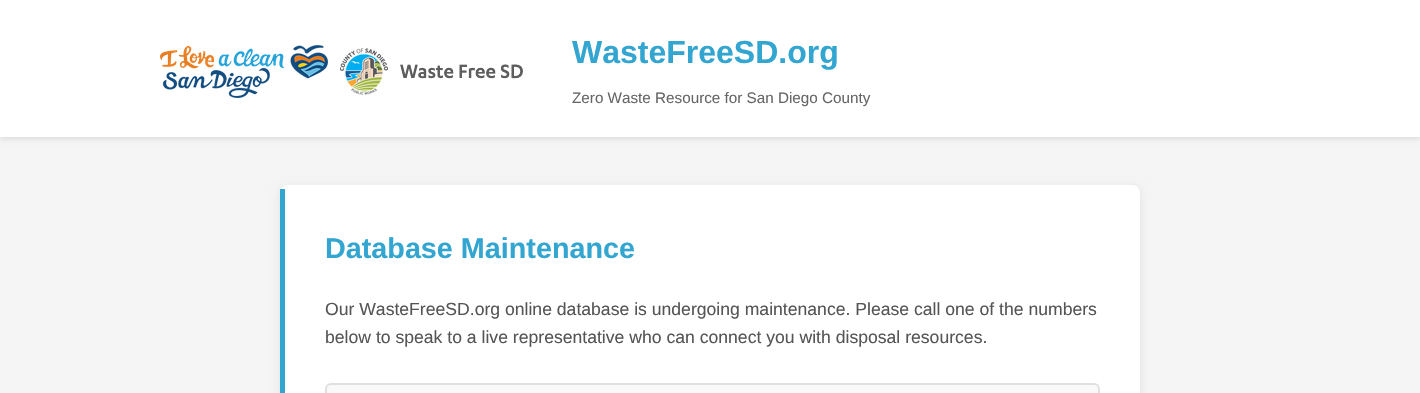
#include "include/core/SkBlurTypes.h"
#include "include/core/SkCanvas.h"
#include "include/core/SkData.h"
#include "include/core/SkFont.h"
#include "include/core/SkFontMgr.h"
#include "include/core/SkImage.h"
#include "include/core/SkMaskFilter.h"
#include "include/core/SkPaint.h"
#include "include/core/SkPathBuilder.h"
#include "include/core/SkTextBlob.h"
#include "include/effects/SkDashPathEffect.h"
#include "include/effects/SkGradientShader.h"
#include "include/utils/SkParsePath.h"

extern sk_sp<SkFontMgr> fontMgr;

void draw(SkCanvas* canvas) {
  SkPaint p;
  p.setAntiAlias(true);
  canvas->clear(SkColorSetRGB(245, 245, 245));
  p.setColor(SkColorSetARGB(26, 0, 0, 0));
  p.setMaskFilter(SkMaskFilter::MakeBlur(kNormal_SkBlurStyle, 2.5f));
  canvas->drawRect(SkRect::MakeLTRB(0, 2, 1420, 139), p);
  p.setMaskFilter(nullptr);
  p.setColor(SK_ColorWHITE);
  canvas->drawRect(SkRect::MakeLTRB(0, 0, 1420, 137), p);
  canvas->drawImageRect(SkImages::DeferredFromEncodedData(SkData::MakeFromFileName("images/1.png")), SkRect::MakeLTRB(160, 45, 523, 98), SkSamplingOptions());
  p.setColor(SkColorSetARGB(20, 0, 0, 0));
  p.setMaskFilter(SkMaskFilter::MakeBlur(kNormal_SkBlurStyle, 5));
  canvas->drawRoundRect(SkRect::MakeLTRB(280, 187, 1140, 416), 8, 8, p);
  p.setMaskFilter(nullptr);
  p.setColor(SK_ColorWHITE);
  canvas->drawRoundRect(SkRect::MakeLTRB(280, 185, 1140, 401), 8, 8, p);
  p.setColor(SkColorSetRGB(50, 165, 209));
  canvas->drawRect(SkRect::MakeLTRB(280, 189, 285, 393), p);
  p.setColor(SkColorSetRGB(249, 249, 249));
  canvas->drawRoundRect(SkRect::MakeLTRB(326, 384, 1099, 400), 5, 5, p);
  p.setStyle(SkPaint::kStroke_Style);
  p.setStrokeWidth(2);
  p.setColor(SkColorSetRGB(224, 224, 224));
  canvas->drawRoundRect(SkRect::MakeLTRB(326, 384, 1099, 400), 5, 5, p);
  SkFont font1(fontMgr->matchFamilyStyle("Liberation Sans", SkFontStyle::Bold()), 32);
  font1.setSubpixel(true);
  p.setStyle(SkPaint::kFill_Style);
  p.setColor(SkColorSetRGB(50, 165, 209));
  canvas->drawString("WasteFreeSD.org", 572, 63, font1, p);
  SkFont font2(fontMgr->matchFamilyStyle("Liberation Sans", SkFontStyle::Normal()), 15.25f);
  font2.setSubpixel(true);
  p.setColor(SkColorSetRGB(102, 102, 102));
  canvas->drawString("Zero Waste Resource for San Diego County", 572, 103, font2, p);
  SkFont font3(fontMgr->matchFamilyStyle("Liberation Sans", SkFontStyle::Bold()), 28.75f);
  font3.setSubpixel(true);
  p.setColor(SkColorSetRGB(50, 165, 209));
  canvas->drawString("Database Maintenance", 325, 258, font3, p);
  SkFont font4(fontMgr->matchFamilyStyle("Liberation Sans", SkFontStyle::Normal()), 17.6f);
  font4.setSubpixel(true);
  p.setColor(SkColorSetRGB(85, 85, 85));
  canvas->drawString("Our WasteFreeSD.org online database is undergoing maintenance. Please call one of the numbers", 325, 315, font4, p);
  canvas->drawString("below to speak to a live representative who can connect you with disposal resources.", 325, 343, font4, p);
}
